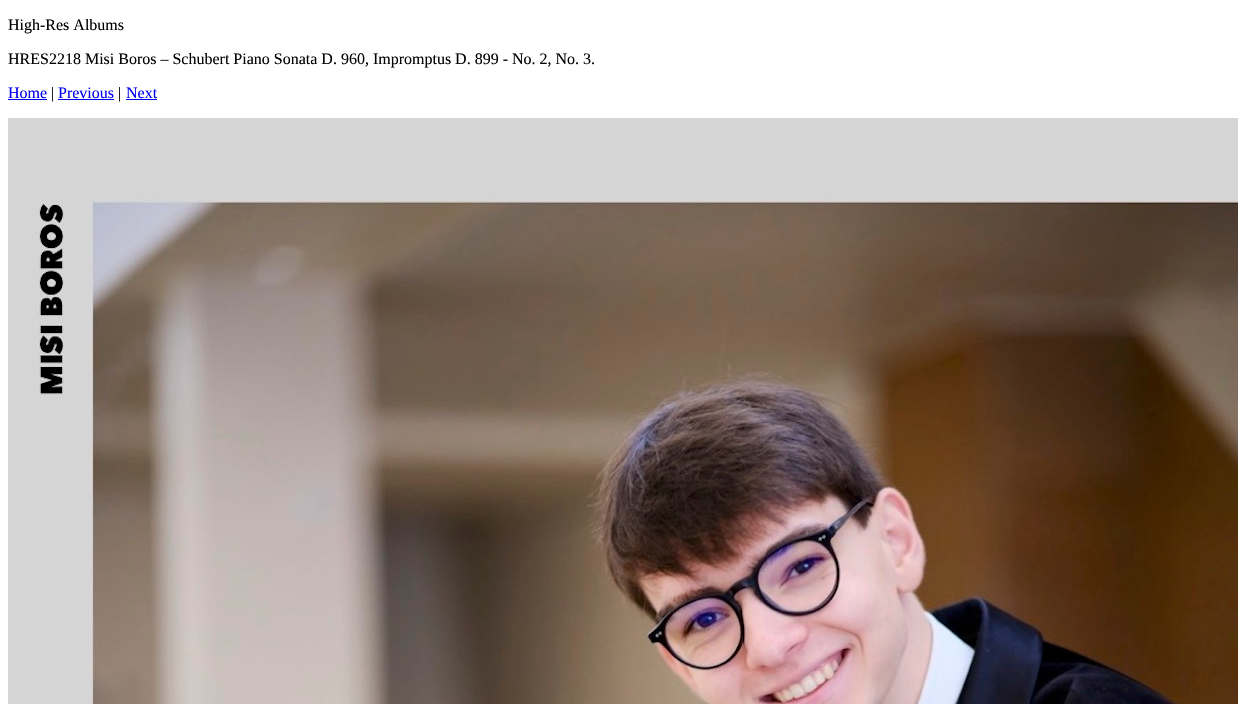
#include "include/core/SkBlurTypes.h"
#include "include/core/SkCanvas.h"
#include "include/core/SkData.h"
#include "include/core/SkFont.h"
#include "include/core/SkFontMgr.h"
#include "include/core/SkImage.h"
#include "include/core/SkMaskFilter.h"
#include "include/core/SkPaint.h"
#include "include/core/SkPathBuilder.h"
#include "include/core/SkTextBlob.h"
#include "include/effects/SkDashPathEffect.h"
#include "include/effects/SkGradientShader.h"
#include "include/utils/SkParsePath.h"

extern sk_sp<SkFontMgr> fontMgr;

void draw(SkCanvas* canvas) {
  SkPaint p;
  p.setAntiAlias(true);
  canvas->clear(SK_ColorWHITE);
  p.setColor(SkColorSetRGB(0, 0, 238));
  canvas->drawRect(SkRect::MakeLTRB(8, 99, 47, 100), p);
  canvas->drawRect(SkRect::MakeLTRB(58, 99, 114, 100), p);
  canvas->drawRect(SkRect::MakeLTRB(126, 99, 157, 100), p);
  canvas->drawImageRect(SkImages::DeferredFromEncodedData(SkData::MakeFromFileName("images/1.png")), SkRect::MakeLTRB(8, 118, 1238, 704), SkSamplingOptions());
  SkFont font1(fontMgr->matchFamilyStyle("Liberation Serif", SkFontStyle::Normal()), 16);
  font1.setSubpixel(true);
  p.setColor(SK_ColorBLACK);
  canvas->drawString("High-Res Albums", 8, 30, font1, p);
  canvas->drawString("HRES2218 Misi Boros – Schubert Piano Sonata D. 960, Impromptus D. 899 - No. 2, No. 3.", 8, 64, font1, p);
  p.setColor(SkColorSetRGB(0, 0, 238));
  canvas->drawString("Home", 8, 98, font1, p);
  p.setColor(SK_ColorBLACK);
  canvas->drawString("|", 51, 98, font1, p);
  p.setColor(SkColorSetRGB(0, 0, 238));
  canvas->drawString("Previous", 58, 98, font1, p);
  p.setColor(SK_ColorBLACK);
  canvas->drawString("|", 118, 98, font1, p);
  p.setColor(SkColorSetRGB(0, 0, 238));
  canvas->drawString("Next", 126, 98, font1, p);
}
